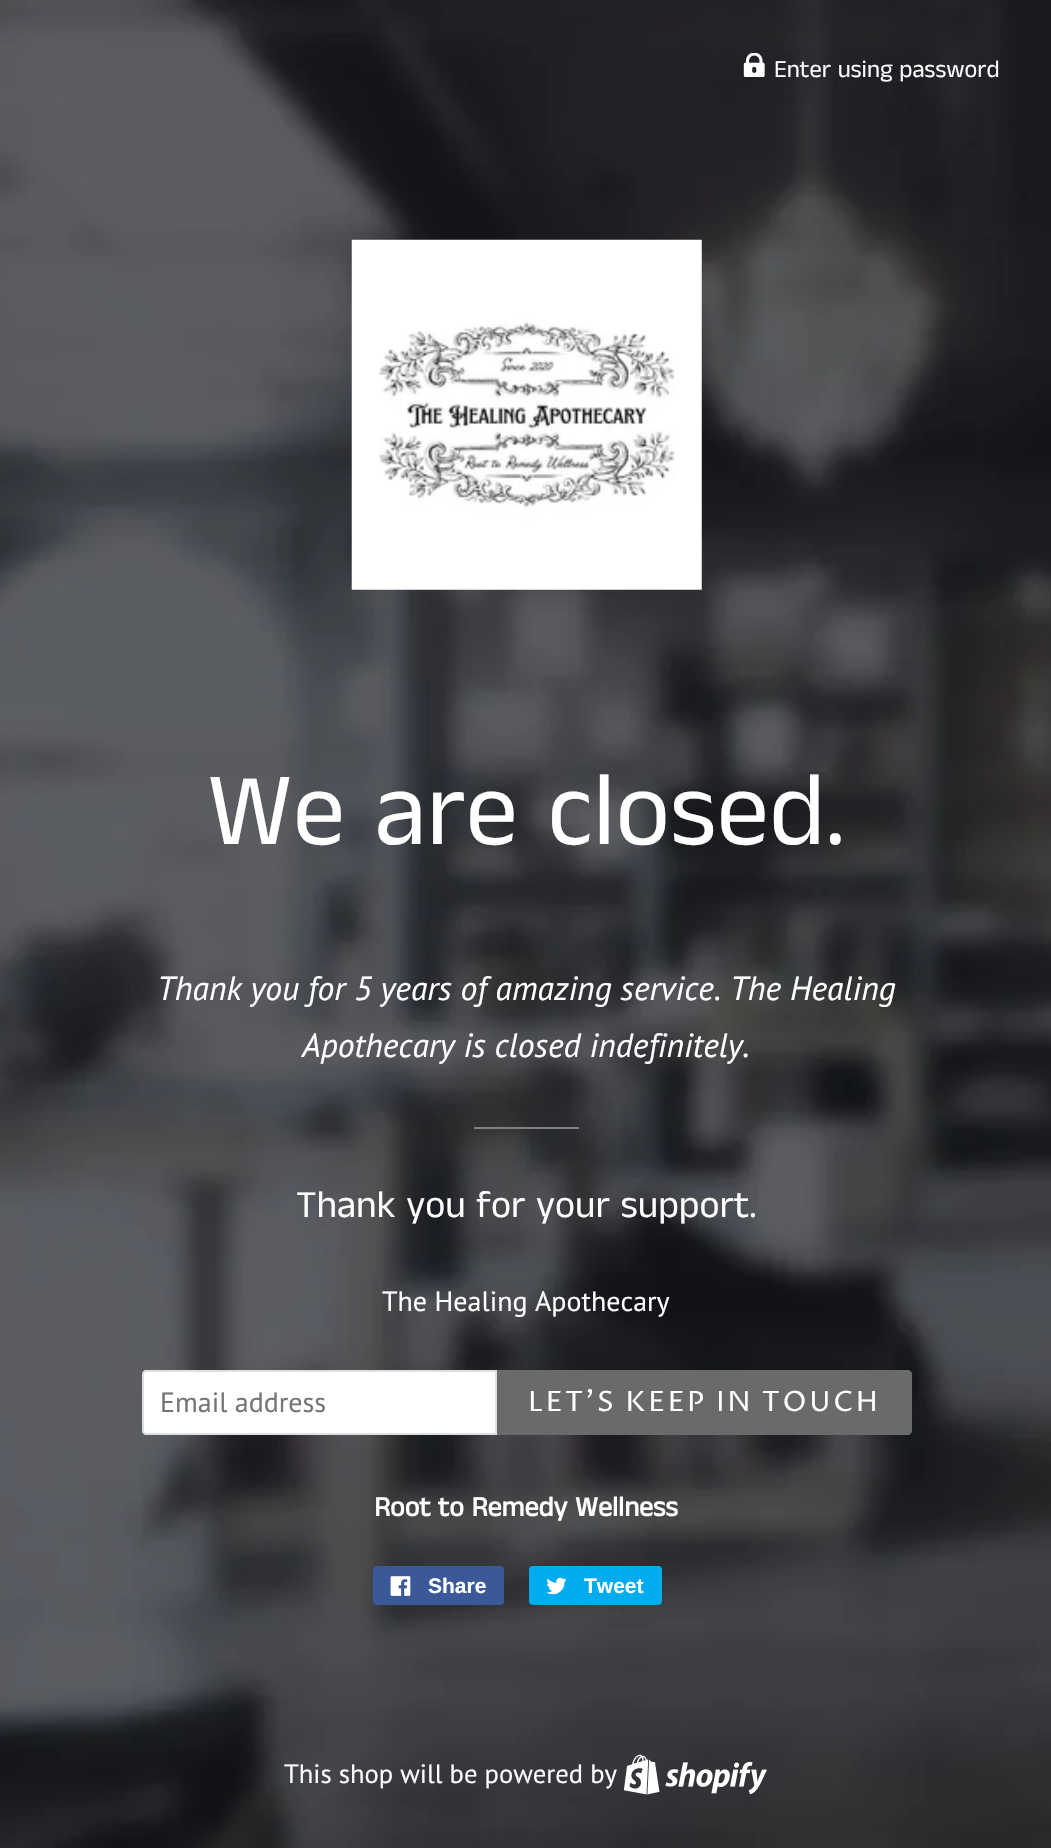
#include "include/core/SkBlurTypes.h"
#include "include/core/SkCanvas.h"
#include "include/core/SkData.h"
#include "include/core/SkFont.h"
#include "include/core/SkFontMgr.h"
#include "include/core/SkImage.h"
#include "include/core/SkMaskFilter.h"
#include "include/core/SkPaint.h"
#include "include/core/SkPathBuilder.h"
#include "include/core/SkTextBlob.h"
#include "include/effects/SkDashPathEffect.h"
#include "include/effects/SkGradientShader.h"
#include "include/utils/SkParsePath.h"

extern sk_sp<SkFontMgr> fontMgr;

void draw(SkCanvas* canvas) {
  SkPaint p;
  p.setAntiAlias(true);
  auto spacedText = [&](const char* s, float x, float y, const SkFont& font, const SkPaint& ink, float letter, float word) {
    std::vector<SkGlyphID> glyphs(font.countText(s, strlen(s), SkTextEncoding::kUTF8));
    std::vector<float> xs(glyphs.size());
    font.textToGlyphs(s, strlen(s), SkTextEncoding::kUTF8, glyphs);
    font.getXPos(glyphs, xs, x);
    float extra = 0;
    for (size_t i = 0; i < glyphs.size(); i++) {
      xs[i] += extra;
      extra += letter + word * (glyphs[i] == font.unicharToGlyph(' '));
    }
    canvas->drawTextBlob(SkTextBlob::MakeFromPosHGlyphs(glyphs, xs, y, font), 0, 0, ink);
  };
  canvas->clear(SK_ColorWHITE);
  canvas->drawImageRect(SkImages::DeferredFromEncodedData(SkData::MakeFromFileName("images/1.png")), SkRect::MakeLTRB(0, 0, 1051, 1848), SkSamplingOptions());
  canvas->drawImageRect(SkImages::DeferredFromEncodedData(SkData::MakeFromFileName("images/2.png")), SkRect::MakeLTRB(743, 53, 765, 77), SkSamplingOptions());
  canvas->drawImageRect(SkImages::DeferredFromEncodedData(SkData::MakeFromFileName("images/3.png")), SkRect::MakeLTRB(351, 239, 702, 590), SkSamplingOptions());
  p.setColor(SkColorSetRGB(128, 128, 128));
  canvas->drawRect(SkRect::MakeLTRB(474, 1127, 579, 1129), p);
  p.setColor(SK_ColorWHITE);
  canvas->drawPath(SkPathBuilder().moveTo(146, 1370).lineTo(497, 1370).lineTo(497, 1435).lineTo(146, 1435).cubicTo(144, 1435, 142, 1433, 142, 1431).lineTo(142, 1374).cubicTo(142, 1372, 144, 1370, 146, 1370).close().detach(), p);
  p.setStyle(SkPaint::kStroke_Style);
  p.setStrokeWidth(2);
  p.setColor(SkColorSetARGB(38, 32, 42, 54));
  canvas->drawPath(SkPathBuilder().moveTo(146, 1371).lineTo(496, 1371).lineTo(496, 1434).lineTo(146, 1434).cubicTo(144.5f, 1434, 143, 1432.5f, 143, 1431).lineTo(143, 1374).cubicTo(143, 1372.5f, 144.5f, 1371, 146, 1371).close().detach(), p);
  p.setStyle(SkPaint::kFill_Style);
  p.setColor(SkColorSetRGB(106, 106, 106));
  canvas->drawPath(SkPathBuilder().moveTo(497, 1370).lineTo(908, 1370).cubicTo(910, 1370, 912, 1372, 912, 1374).lineTo(912, 1431).cubicTo(912, 1433, 910, 1435, 908, 1435).lineTo(497, 1435).close().detach(), p);
  p.setColor(SkColorSetRGB(59, 89, 152));
  canvas->drawRoundRect(SkRect::MakeLTRB(373, 1566, 504, 1605), 4, 4, p);
  canvas->drawImageRect(SkImages::DeferredFromEncodedData(SkData::MakeFromFileName("images/4.png")), SkRect::MakeLTRB(390, 1576, 411, 1596), SkSamplingOptions());
  p.setColor(SkColorSetRGB(0, 172, 237));
  canvas->drawRoundRect(SkRect::MakeLTRB(529, 1566, 662, 1605), 4, 4, p);
  canvas->drawImageRect(SkImages::DeferredFromEncodedData(SkData::MakeFromFileName("images/5.png")), SkRect::MakeLTRB(546, 1577, 567, 1595), SkSamplingOptions());
  canvas->drawImageRect(SkImages::DeferredFromEncodedData(SkData::MakeFromFileName("images/6.png")), SkRect::MakeLTRB(623, 1754, 767, 1795), SkSamplingOptions());
  SkFont font1(fontMgr->matchFamilyStyle("Anek Tamil", SkFontStyle::Normal()), 24.5f);
  font1.setSubpixel(true);
  p.setColor(SK_ColorWHITE);
  canvas->drawString("Enter using password", 774, 77, font1, p);
  SkFont font2(fontMgr->matchFamilyStyle("Anek Tamil", SkFontStyle::Normal()), 105);
  font2.setSubpixel(true);
  canvas->drawString("We are closed.", 207, 844, font2, p);
  SkFont font3(fontMgr->matchFamilyStyle("PT Sans", SkFontStyle::Italic()), 33.6f);
  font3.setSubpixel(true);
  canvas->drawString("Thank you for 5 years of amazing service. The Healing", 157, 1000, font3, p);
  canvas->drawString("Apothecary is closed indefinitely.", 302, 1057, font3, p);
  SkFont font4(fontMgr->matchFamilyStyle("Anek Tamil", SkFontStyle::Normal()), 38.5f);
  font4.setSubpixel(true);
  canvas->drawString("Thank you for your support.", 296, 1217, font4, p);
  SkFont font5(fontMgr->matchFamilyStyle("PT Sans", SkFontStyle::Normal()), 28);
  font5.setSubpixel(true);
  canvas->drawString("The Healing Apothecary", 382, 1311, font5, p);
  p.setColor(SkColorSetRGB(117, 117, 117));
  canvas->drawString("Email address", 160, 1412, font5, p);
  SkFont font6(fontMgr->matchFamilyStyle("Proza Libre", SkFontStyle::Normal()), 28);
  font6.setSubpixel(true);
  p.setColor(SK_ColorWHITE);
  spacedText("LET'S KEEP IN TOUCH", 528, 1411, font6, p, 2.75f, 0);
  SkFont font7(fontMgr->matchFamilyStyle("Anek Tamil", SkFontStyle::Bold()), 28);
  font7.setSubpixel(true);
  canvas->drawString("Root to Remedy Wellness", 374, 1516, font7, p);
  SkFont font8(fontMgr->matchFamilyStyle("Liberation Sans", SkFontStyle::Bold()), 21);
  font8.setSubpixel(true);
  canvas->drawString("Share", 428, 1593, font8, p);
  canvas->drawString("Tweet", 584, 1593, font8, p);
  SkFont font9(fontMgr->matchFamilyStyle("PT Sans", SkFontStyle::Normal()), 26.6f);
  font9.setSubpixel(true);
  canvas->drawString("This shop will be powered by", 284, 1783, font9, p);
}
